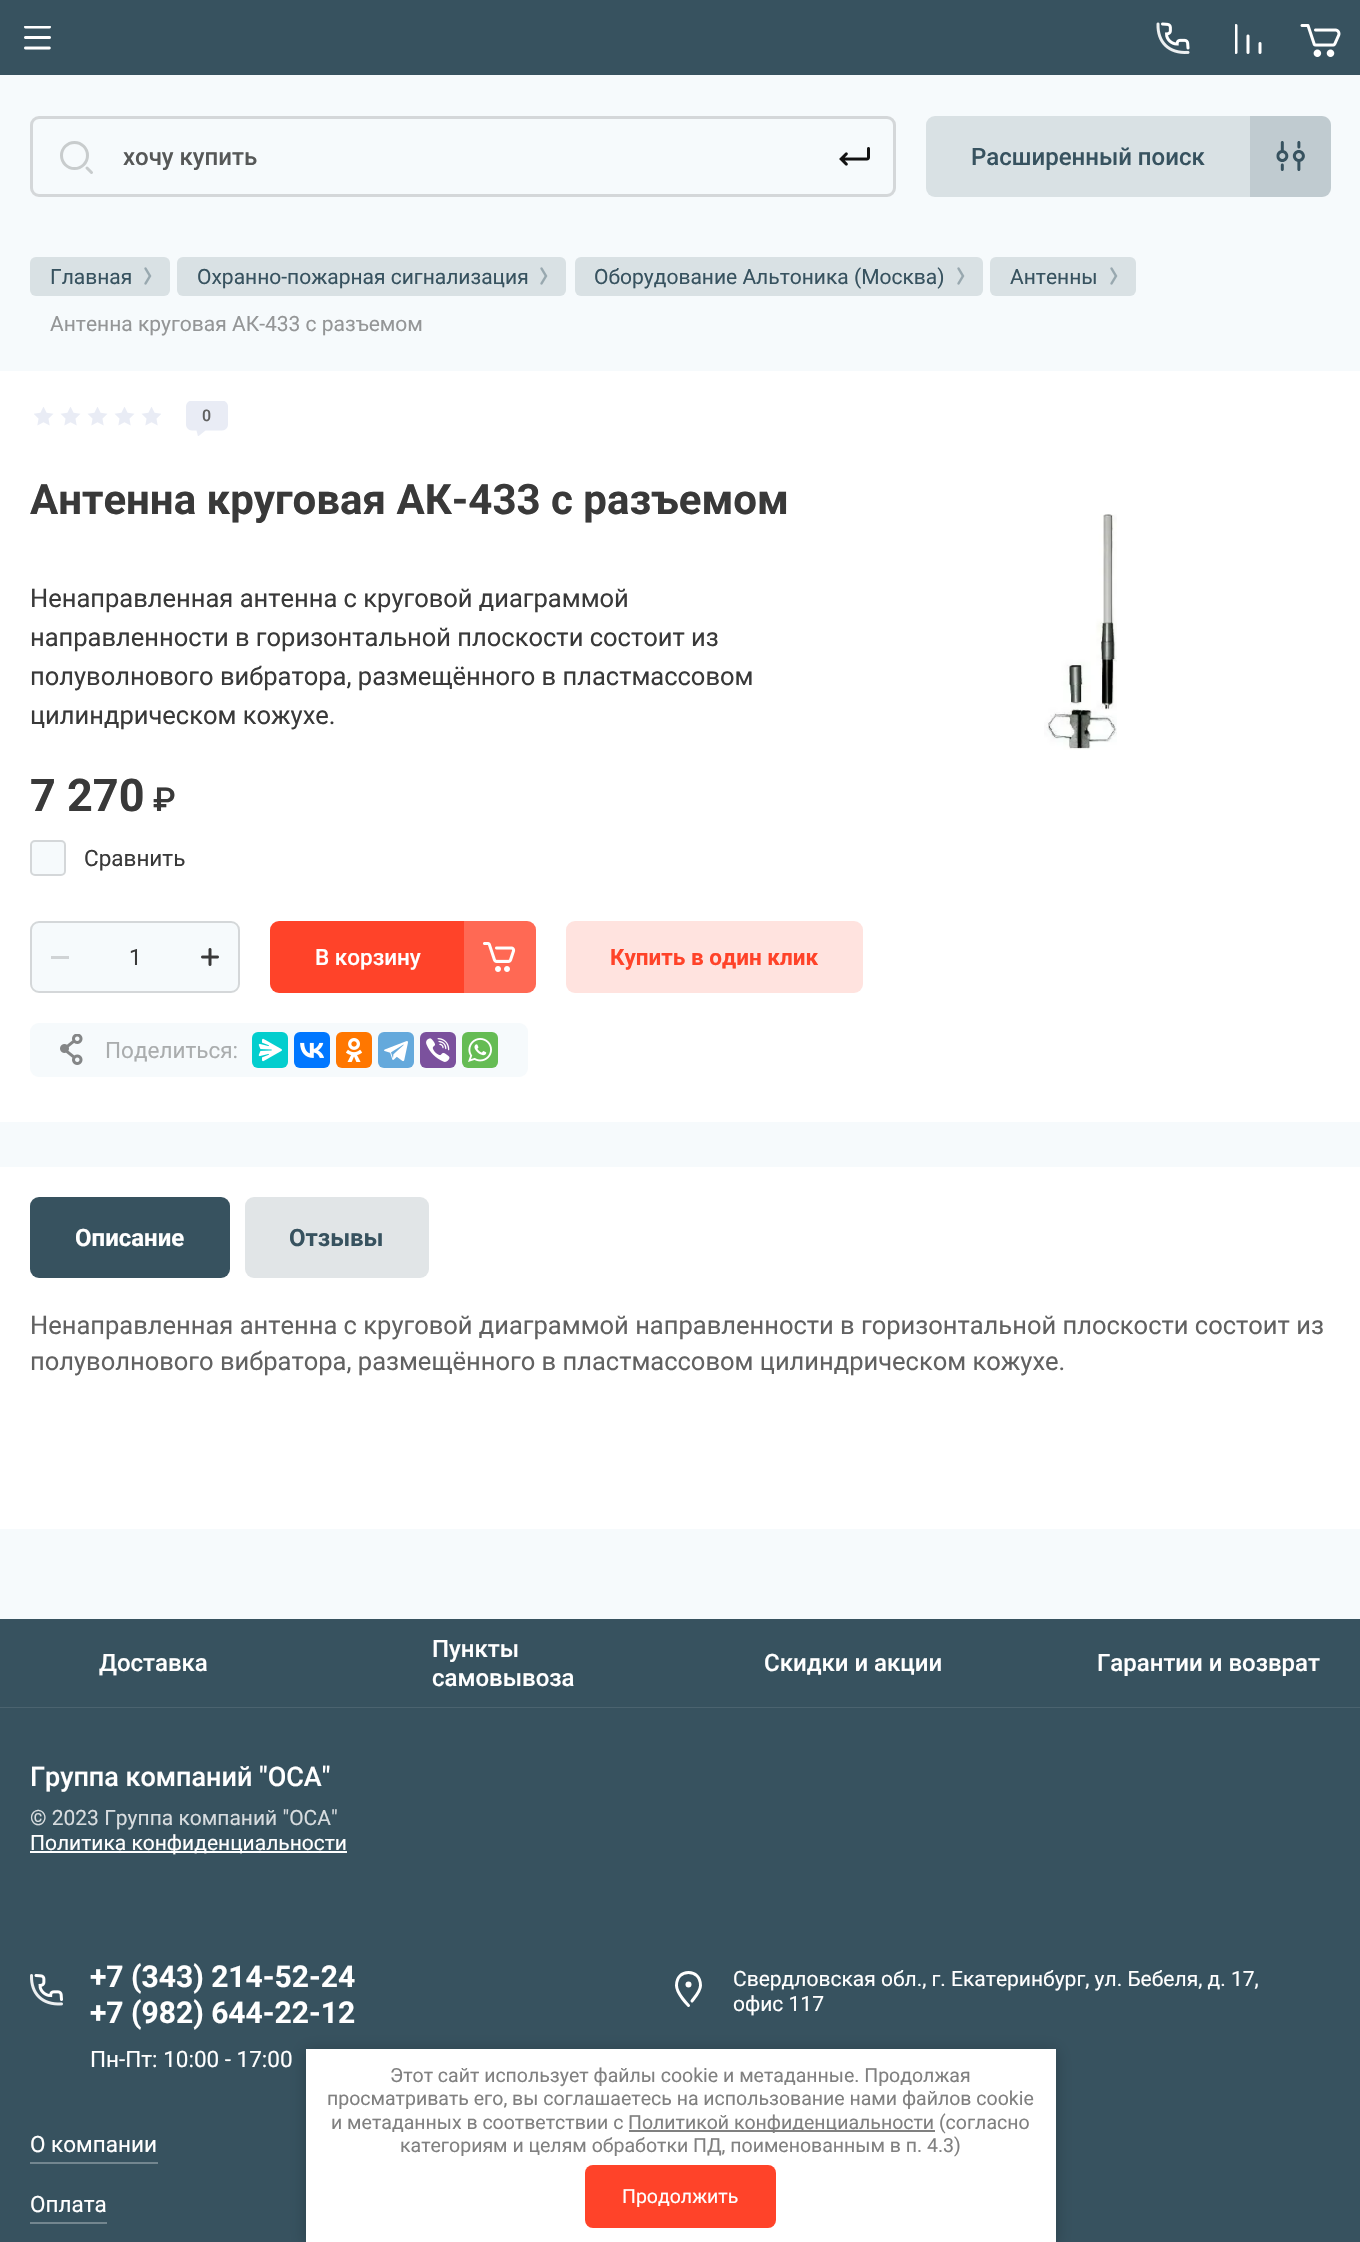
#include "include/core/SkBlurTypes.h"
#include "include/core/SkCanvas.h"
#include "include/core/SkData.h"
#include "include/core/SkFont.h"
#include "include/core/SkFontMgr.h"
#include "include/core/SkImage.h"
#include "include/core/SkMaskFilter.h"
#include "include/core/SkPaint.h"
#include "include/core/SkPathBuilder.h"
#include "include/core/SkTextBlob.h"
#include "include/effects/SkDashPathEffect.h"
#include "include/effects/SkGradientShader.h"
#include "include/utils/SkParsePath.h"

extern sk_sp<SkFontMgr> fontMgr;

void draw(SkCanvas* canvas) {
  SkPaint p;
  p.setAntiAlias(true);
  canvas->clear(SkColorSetRGB(246, 250, 252));
  p.setColor(SkColorSetRGB(55, 82, 95));
  canvas->drawRect(SkRect::MakeLTRB(0, 0, 1360, 75), p);
  canvas->drawImageRect(SkImages::DeferredFromEncodedData(SkData::MakeFromFileName("images/1.png")), SkRect::MakeLTRB(24, 26, 51, 50), SkSamplingOptions());
  canvas->drawImageRect(SkImages::DeferredFromEncodedData(SkData::MakeFromFileName("images/2.png")), SkRect::MakeLTRB(1156, 22, 1190, 54), SkSamplingOptions());
  canvas->drawImageRect(SkImages::DeferredFromEncodedData(SkData::MakeFromFileName("images/3.png")), SkRect::MakeLTRB(1235, 24, 1262, 54), SkSamplingOptions());
  canvas->drawImageRect(SkImages::DeferredFromEncodedData(SkData::MakeFromFileName("images/4.png")), SkRect::MakeLTRB(1300, 24, 1341, 57), SkSamplingOptions());
  p.setStyle(SkPaint::kStroke_Style);
  p.setStrokeWidth(3);
  p.setColor(SkColorSetRGB(212, 215, 217));
  canvas->drawRoundRect(SkRect::MakeLTRB(31.5f, 117.5f, 894.5f, 195.5f), 7.5f, 7.5f, p);
  p.setColor(SkColorSetRGB(200, 204, 205));
  canvas->drawCircle(74.5f, 155.5f, 13, p);
  p.setStrokeCap(SkPaint::kRound_Cap);
  canvas->drawPath(SkPathBuilder().moveTo(87, 168).lineTo(91.5f, 172.5f).detach(), p);
  canvas->drawImageRect(SkImages::DeferredFromEncodedData(SkData::MakeFromFileName("images/5.png")), SkRect::MakeLTRB(839, 147, 870, 166), SkSamplingOptions());
  p.setStyle(SkPaint::kFill_Style);
  p.setColor(SkColorSetRGB(217, 225, 228));
  canvas->drawRoundRect(SkRect::MakeLTRB(926, 116, 1331, 197), 9, 9, p);
  p.setColor(SkColorSetARGB(38, 55, 82, 95));
  canvas->drawPath(SkPathBuilder().moveTo(1250, 116).lineTo(1322, 116).cubicTo(1327, 116, 1331, 120, 1331, 125).lineTo(1331, 188).cubicTo(1331, 193, 1327, 197, 1322, 197).lineTo(1250, 197).close().detach(), p);
  canvas->drawImageRect(SkImages::DeferredFromEncodedData(SkData::MakeFromFileName("images/6.png")), SkRect::MakeLTRB(1276, 141, 1305, 171), SkSamplingOptions());
  p.setColor(SkColorSetRGB(217, 225, 228));
  canvas->drawRoundRect(SkRect::MakeLTRB(30, 257, 170, 296), 6, 6, p);
  canvas->drawImageRect(SkImages::DeferredFromEncodedData(SkData::MakeFromFileName("images/7.png")), SkRect::MakeLTRB(144, 267, 152, 285), SkSamplingOptions());
  canvas->drawRoundRect(SkRect::MakeLTRB(177, 257, 566, 296), 6, 6, p);
  canvas->drawImageRect(SkImages::DeferredFromEncodedData(SkData::MakeFromFileName("images/7.png")), SkRect::MakeLTRB(540, 267, 548, 285), SkSamplingOptions());
  canvas->drawRoundRect(SkRect::MakeLTRB(575, 257, 983, 296), 6, 6, p);
  canvas->drawImageRect(SkImages::DeferredFromEncodedData(SkData::MakeFromFileName("images/7.png")), SkRect::MakeLTRB(957, 267, 965, 285), SkSamplingOptions());
  canvas->drawRoundRect(SkRect::MakeLTRB(990, 257, 1136, 296), 6, 6, p);
  canvas->drawImageRect(SkImages::DeferredFromEncodedData(SkData::MakeFromFileName("images/7.png")), SkRect::MakeLTRB(1110, 267, 1118, 285), SkSamplingOptions());
  p.setColor(SK_ColorWHITE);
  canvas->drawRect(SkRect::MakeLTRB(0, 371, 1360, 1122), p);
  canvas->drawImageRect(SkImages::DeferredFromEncodedData(SkData::MakeFromFileName("images/8.png")), SkRect::MakeLTRB(34, 407, 161, 426), SkSamplingOptions());
  canvas->drawImageRect(SkImages::DeferredFromEncodedData(SkData::MakeFromFileName("images/9.png")), SkRect::MakeLTRB(186, 401, 228, 436), SkSamplingOptions());
  p.setColor(SkColorSetRGB(246, 250, 252));
  canvas->drawRoundRect(SkRect::MakeLTRB(30, 840, 66, 876), 5, 5, p);
  p.setStyle(SkPaint::kStroke_Style);
  p.setStrokeWidth(2);
  p.setStrokeCap(SkPaint::kButt_Cap);
  p.setColor(SkColorSetARGB(38, 18, 18, 18));
  canvas->drawRoundRect(SkRect::MakeLTRB(31, 841, 65, 875), 4, 4, p);
  canvas->drawImageRect(SkImages::DeferredFromEncodedData(SkData::MakeFromFileName("images/10.png")), SkRect::MakeLTRB(1044, 514, 1117, 750), SkSamplingOptions());
  p.setStyle(SkPaint::kFill_Style);
  p.setColor(SkColorSetRGB(246, 250, 252));
  canvas->drawRoundRect(SkRect::MakeLTRB(30, 921, 240, 993), 9, 9, p);
  p.setStyle(SkPaint::kStroke_Style);
  p.setColor(SkColorSetARGB(38, 18, 18, 18));
  canvas->drawRoundRect(SkRect::MakeLTRB(31, 922, 239, 992), 8, 8, p);
  p.setStyle(SkPaint::kFill_Style);
  p.setColor(SkColorSetRGB(208, 211, 213));
  canvas->drawRect(SkRect::MakeLTRB(51, 956, 69, 959), p);
  canvas->drawImageRect(SkImages::DeferredFromEncodedData(SkData::MakeFromFileName("images/11.png")), SkRect::MakeLTRB(201, 948, 219, 966), SkSamplingOptions());
  p.setColor(SkColorSetRGB(255, 67, 41));
  canvas->drawRoundRect(SkRect::MakeLTRB(270, 921, 536, 993), 9, 9, p);
  p.setColor(SkColorSetARGB(51, 255, 255, 255));
  canvas->drawPath(SkPathBuilder().moveTo(464, 921).lineTo(527, 921).cubicTo(532, 921, 536, 925, 536, 930).lineTo(536, 984).cubicTo(536, 989, 532, 993, 527, 993).lineTo(464, 993).close().detach(), p);
  canvas->drawImageRect(SkImages::DeferredFromEncodedData(SkData::MakeFromFileName("images/12.png")), SkRect::MakeLTRB(483, 942, 516, 972), SkSamplingOptions());
  p.setColor(SkColorSetRGB(255, 227, 223));
  canvas->drawRoundRect(SkRect::MakeLTRB(566, 921, 863, 993), 9, 9, p);
  p.setColor(SkColorSetRGB(246, 250, 252));
  canvas->drawRoundRect(SkRect::MakeLTRB(30, 1023, 528, 1077), 9, 9, p);
  canvas->drawImageRect(SkImages::DeferredFromEncodedData(SkData::MakeFromFileName("images/13.png")), SkRect::MakeLTRB(60, 1034, 83, 1065), SkSamplingOptions());
  p.setColor(SkColorSetRGB(3, 206, 206));
  canvas->drawRoundRect(SkRect::MakeLTRB(252, 1032, 288, 1068), 6, 6, p);
  canvas->drawImageRect(SkImages::DeferredFromEncodedData(SkData::MakeFromFileName("images/14.png")), SkRect::MakeLTRB(258, 1038, 282, 1062), SkSamplingOptions());
  p.setColor(SkColorSetRGB(0, 119, 255));
  canvas->drawRoundRect(SkRect::MakeLTRB(294, 1032, 330, 1068), 6, 6, p);
  canvas->drawImageRect(SkImages::DeferredFromEncodedData(SkData::MakeFromFileName("images/15.png")), SkRect::MakeLTRB(300, 1042, 324, 1058), SkSamplingOptions());
  p.setColor(SkColorSetRGB(255, 119, 0));
  canvas->drawRoundRect(SkRect::MakeLTRB(336, 1032, 372, 1068), 6, 6, p);
  canvas->drawImageRect(SkImages::DeferredFromEncodedData(SkData::MakeFromFileName("images/16.png")), SkRect::MakeLTRB(346, 1038, 363, 1062), SkSamplingOptions());
  p.setColor(SkColorSetRGB(100, 169, 220));
  canvas->drawRoundRect(SkRect::MakeLTRB(378, 1032, 414, 1068), 6, 6, p);
  canvas->drawImageRect(SkImages::DeferredFromEncodedData(SkData::MakeFromFileName("images/17.png")), SkRect::MakeLTRB(384, 1041, 408, 1062), SkSamplingOptions());
  p.setColor(SkColorSetRGB(123, 81, 157));
  canvas->drawRoundRect(SkRect::MakeLTRB(420, 1032, 456, 1068), 6, 6, p);
  canvas->drawImageRect(SkImages::DeferredFromEncodedData(SkData::MakeFromFileName("images/18.png")), SkRect::MakeLTRB(426, 1038, 450, 1062), SkSamplingOptions());
  p.setColor(SkColorSetRGB(101, 188, 84));
  canvas->drawRoundRect(SkRect::MakeLTRB(462, 1032, 498, 1068), 6, 6, p);
  canvas->drawImageRect(SkImages::DeferredFromEncodedData(SkData::MakeFromFileName("images/19.png")), SkRect::MakeLTRB(468, 1038, 492, 1062), SkSamplingOptions());
  p.setColor(SK_ColorWHITE);
  canvas->drawRect(SkRect::MakeLTRB(0, 1167, 1360, 1529), p);
  p.setColor(SkColorSetRGB(55, 82, 95));
  canvas->drawRoundRect(SkRect::MakeLTRB(30, 1197, 230, 1278), 9, 9, p);
  p.setColor(SkColorSetRGB(225, 229, 231));
  canvas->drawRoundRect(SkRect::MakeLTRB(245, 1197, 429, 1278), 9, 9, p);
  p.setColor(SkColorSetRGB(55, 82, 95));
  canvas->drawRect(SkRect::MakeLTRB(0, 1619, 1360, 2242), p);
  p.setColor(SkColorSetRGB(75, 99, 111));
  canvas->drawPath(SkPathBuilder().moveTo(0, 1707).lineTo(0, 1708).lineTo(1360, 1708).lineTo(1360, 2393).lineTo(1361, 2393).lineTo(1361, 1707).close().detach(), p);
  p.setColor(SK_ColorWHITE);
  canvas->drawRect(SkRect::MakeLTRB(30, 1851, 347, 1853), p);
  canvas->drawImageRect(SkImages::DeferredFromEncodedData(SkData::MakeFromFileName("images/20.png")), SkRect::MakeLTRB(30, 1974, 63, 2006), SkSamplingOptions());
  p.setStyle(SkPaint::kStroke_Style);
  p.setStrokeWidth(3);
  p.setStrokeCap(SkPaint::kRound_Cap);
  canvas->drawPath(SkPathBuilder().moveTo(688.5f, 2005.5f).cubicTo(688.5f, 2005.5f, 676.5f, 1993.5f, 676.5f, 1985.5f).cubicTo(676.5f, 1977, 682, 1972.5f, 688.5f, 1972.5f).cubicTo(695, 1972.5f, 700.5f, 1977, 700.5f, 1985.5f).cubicTo(700.5f, 1991, 695.5f, 1996.5f, 692, 2001).detach(), p);
  p.setStyle(SkPaint::kFill_Style);
  canvas->drawCircle(688.5f, 1984.5f, 3, p);
  p.setColor(SkColorSetRGB(115, 134, 143));
  canvas->drawRect(SkRect::MakeLTRB(30, 2162, 158, 2164), p);
  canvas->drawRect(SkRect::MakeLTRB(30, 2222, 107, 2224), p);
  p.setColor(SkColorSetARGB(59, 0, 0, 0));
  p.setMaskFilter(SkMaskFilter::MakeBlur(kNormal_SkBlurStyle, 7.5f));
  canvas->drawRect(SkRect::MakeLTRB(306, 2051, 1056, 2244), p);
  p.setMaskFilter(nullptr);
  p.setColor(SK_ColorWHITE);
  canvas->drawRect(SkRect::MakeLTRB(306, 2049, 1056, 2242), p);
  p.setColor(SkColorSetRGB(128, 128, 128));
  canvas->drawRect(SkRect::MakeLTRB(629, 2130, 935, 2132), p);
  p.setColor(SkColorSetRGB(255, 67, 41));
  canvas->drawRoundRect(SkRect::MakeLTRB(585, 2165, 776, 2228), 8, 8, p);
  SkFont font1(fontMgr->matchFamilyStyle("Roboto", SkFontStyle(500, SkFontStyle::kNormal_Width, SkFontStyle::kUpright_Slant)), 24);
  font1.setSubpixel(true);
  p.setColor(SkColorSetRGB(86, 88, 88));
  canvas->drawString("хочу купить", 123, 165, font1, p);
  p.setColor(SkColorSetRGB(55, 82, 95));
  canvas->drawString("Расширенный поиск", 971, 165, font1, p);
  SkFont font2(fontMgr->matchFamilyStyle("Roboto", SkFontStyle::Normal()), 21);
  font2.setSubpixel(true);
  canvas->drawString("Главная", 50, 284, font2, p);
  canvas->drawString("Охранно-пожарная сигнализация", 197, 284, font2, p);
  canvas->drawString("Оборудование Альтоника (Москва)", 594, 284, font2, p);
  canvas->drawString("Антенны", 1010, 284, font2, p);
  p.setColor(SkColorSetRGB(148, 150, 151));
  canvas->drawString("Антенна круговая АК-433 с разъемом", 50, 331, font2, p);
  SkFont font3(fontMgr->matchFamilyStyle("Roboto", SkFontStyle(500, SkFontStyle::kNormal_Width, SkFontStyle::kUpright_Slant)), 16);
  font3.setSubpixel(true);
  p.setColor(SkColorSetRGB(97, 97, 97));
  canvas->drawString("0", 202, 421, font3, p);
  SkFont font4(fontMgr->matchFamilyStyle("Roboto", SkFontStyle::Bold()), 42);
  font4.setSubpixel(true);
  p.setColor(SkColorSetRGB(57, 57, 57));
  canvas->drawString("Антенна круговая АК-433 с разъемом", 30, 514, font4, p);
  SkFont font5(fontMgr->matchFamilyStyle("Roboto", SkFontStyle::Normal()), 25.5f);
  font5.setSubpixel(true);
  canvas->drawString("Ненаправленная антенна с круговой диаграммой", 30, 607, font5, p);
  canvas->drawString("направленности в горизонтальной плоскости состоит из", 30, 646, font5, p);
  canvas->drawString("полуволнового вибратора, размещённого в пластмассовом", 30, 685, font5, p);
  canvas->drawString("цилиндрическом кожухе.", 30, 724, font5, p);
  SkFont font6(fontMgr->matchFamilyStyle("Roboto", SkFontStyle::Bold()), 45);
  font6.setSubpixel(true);
  canvas->drawString("7 270", 30, 811, font6, p);
  SkFont font7(fontMgr->matchFamilyStyle("Roboto", SkFontStyle(500, SkFontStyle::kNormal_Width, SkFontStyle::kUpright_Slant)), 33);
  font7.setSubpixel(true);
  canvas->drawString("₽", 153, 811, font7, p);
  SkFont font8(fontMgr->matchFamilyStyle("Roboto", SkFontStyle::Normal()), 22.5f);
  font8.setSubpixel(true);
  canvas->drawString("Сравнить", 84, 866, font8, p);
  canvas->drawString("1", 129, 965, font8, p);
  SkFont font9(fontMgr->matchFamilyStyle("Roboto", SkFontStyle(500, SkFontStyle::kNormal_Width, SkFontStyle::kUpright_Slant)), 22.5f);
  font9.setSubpixel(true);
  p.setColor(SK_ColorWHITE);
  canvas->drawString("В корзину", 315, 965, font9, p);
  SkFont font10(fontMgr->matchFamilyStyle("Roboto", SkFontStyle::Bold()), 22.5f);
  font10.setSubpixel(true);
  p.setColor(SkColorSetRGB(255, 67, 41));
  canvas->drawString("Купить в один клик", 610, 965, font10, p);
  p.setColor(SkColorSetRGB(170, 173, 174));
  canvas->drawString("Поделиться:", 105, 1058, font8, p);
  SkFont font11(fontMgr->matchFamilyStyle("Roboto", SkFontStyle::Bold()), 24);
  font11.setSubpixel(true);
  p.setColor(SK_ColorWHITE);
  canvas->drawString("Описание", 75, 1246, font11, p);
  p.setColor(SkColorSetRGB(55, 82, 95));
  canvas->drawString("Отзывы", 289, 1246, font11, p);
  p.setColor(SkColorSetRGB(97, 97, 97));
  canvas->drawString("Ненаправленная антенна с круговой диаграммой направленности в горизонтальной плоскости состоит из", 30, 1334, font5, p);
  canvas->drawString("полуволнового вибратора, размещённого в пластмассовом цилиндрическом кожухе.", 30, 1370, font5, p);
  p.setColor(SK_ColorWHITE);
  canvas->drawString("Доставка", 99, 1671, font1, p);
  canvas->drawString("Пункты", 432, 1657, font1, p);
  canvas->drawString("самовывоза", 432, 1686, font1, p);
  canvas->drawString("Скидки и акции", 764, 1671, font1, p);
  canvas->drawString("Гарантии и возврат", 1097, 1671, font1, p);
  SkFont font12(fontMgr->matchFamilyStyle("Roboto", SkFontStyle(500, SkFontStyle::kNormal_Width, SkFontStyle::kUpright_Slant)), 27);
  font12.setSubpixel(true);
  canvas->drawString("Группа компаний \"ОСА\"", 30, 1786, font12, p);
  p.setColor(SkColorSetRGB(215, 220, 223));
  canvas->drawString("© 2023 Группа компаний \"ОСА\"", 30, 1825, font2, p);
  p.setColor(SK_ColorWHITE);
  canvas->drawString("Политика конфиденциальности", 30, 1850, font2, p);
  SkFont font13(fontMgr->matchFamilyStyle("Roboto", SkFontStyle::Bold()), 30);
  font13.setSubpixel(true);
  canvas->drawString("+7 (343) 214-52-24", 90, 1987, font13, p);
  canvas->drawString("+7 (982) 644-22-12", 90, 2023, font13, p);
  canvas->drawString("Пн-Пт: 10:00 - 17:00", 90, 2067, font8, p);
  canvas->drawString("Свердловская обл., г. Екатеринбург, ул. Бебеля, д. 17,", 733, 1986, font2, p);
  canvas->drawString("офис 117", 733, 2011, font2, p);
  canvas->drawString("О компании", 30, 2152, font8, p);
  canvas->drawString("Оплата", 30, 2212, font8, p);
  SkFont font14(fontMgr->matchFamilyStyle("Roboto", SkFontStyle::Normal()), 19.5f);
  font14.setSubpixel(true);
  p.setColor(SkColorSetRGB(128, 128, 128));
  canvas->drawString("Этот сайт использует файлы cookie и метаданные. Продолжая", 390, 2082, font14, p);
  canvas->drawString("просматривать его, вы соглашаетесь на использование нами файлов cookie", 327, 2105, font14, p);
  canvas->drawString("и метаданных в соответствии с", 331, 2129, font14, p);
  canvas->drawString("Политикой конфиденциальности (согласно", 628, 2129, font14, p);
  canvas->drawString("категориям и целям обработки ПД, поименованным в п. 4.3)", 400, 2152, font14, p);
  p.setColor(SK_ColorWHITE);
  canvas->drawString("Продолжить", 622, 2203, font14, p);
}
